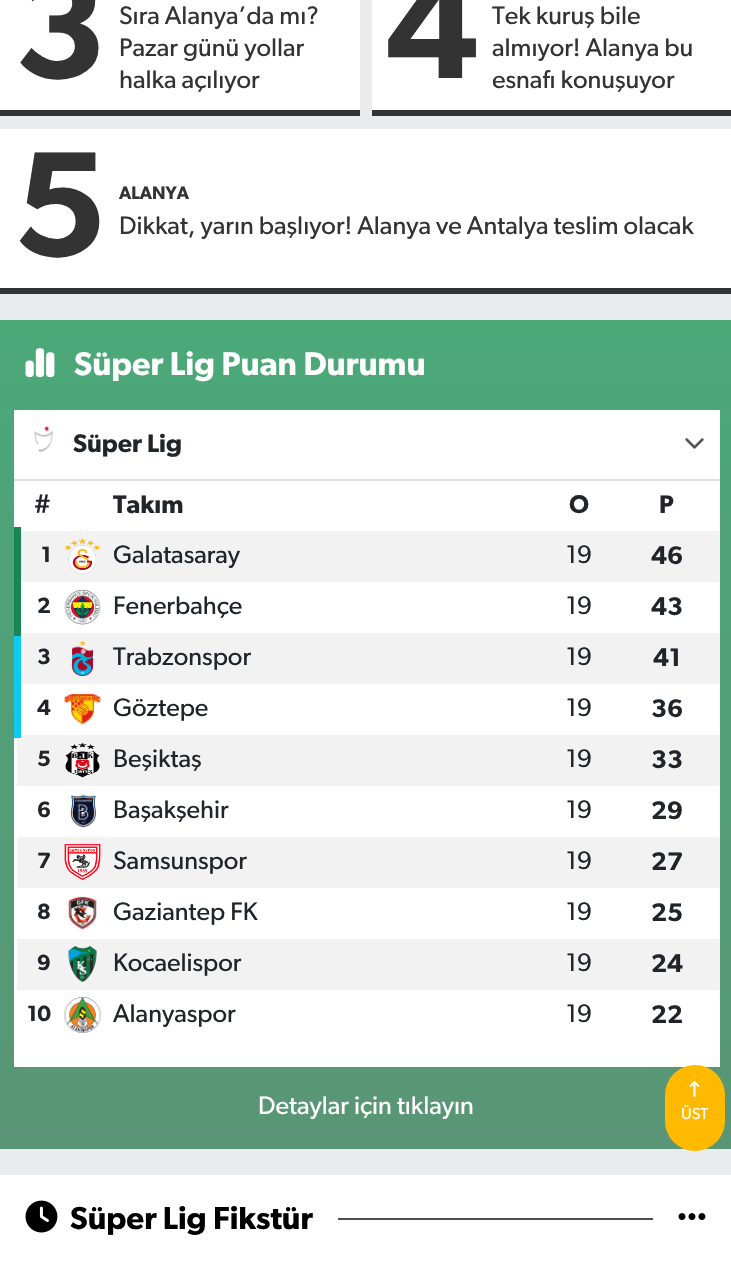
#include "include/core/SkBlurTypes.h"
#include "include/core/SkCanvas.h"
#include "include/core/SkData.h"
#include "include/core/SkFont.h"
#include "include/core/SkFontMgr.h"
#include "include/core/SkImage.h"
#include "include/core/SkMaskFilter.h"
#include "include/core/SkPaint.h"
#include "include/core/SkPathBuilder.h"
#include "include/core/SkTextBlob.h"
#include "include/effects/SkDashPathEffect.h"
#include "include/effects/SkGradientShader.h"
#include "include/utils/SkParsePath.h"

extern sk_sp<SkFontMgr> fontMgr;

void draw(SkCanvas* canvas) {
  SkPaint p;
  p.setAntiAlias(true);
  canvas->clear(SkColorSetRGB(233, 236, 239));
  p.setColor(SK_ColorWHITE);
  canvas->drawRect(SkRect::MakeLTRB(0, 0, 360, 110), p);
  p.setColor(SkColorSetRGB(51, 51, 51));
  canvas->drawRect(SkRect::MakeLTRB(0, 110, 360, 116), p);
  p.setColor(SK_ColorWHITE);
  canvas->drawRect(SkRect::MakeLTRB(372, 0, 731, 110), p);
  p.setColor(SkColorSetRGB(51, 51, 51));
  canvas->drawRect(SkRect::MakeLTRB(372, 110, 731, 116), p);
  p.setColor(SK_ColorWHITE);
  canvas->drawRect(SkRect::MakeLTRB(0, 129, 731, 288), p);
  p.setColor(SkColorSetRGB(51, 51, 51));
  canvas->drawRect(SkRect::MakeLTRB(0, 288, 731, 294), p);
  {
    const SkColor colors[] = {SkColorSetRGB(75, 169, 120), SkColorSetRGB(89, 149, 118)};
    const float stops[] = {0, 1};
    const SkPoint ends[] = {{366, 319}, {366, 1149}};
    p.setShader(SkGradientShader::MakeLinear(ends, colors, stops, 2, SkTileMode::kClamp));
    p.setAlpha(255);
  }
  canvas->drawRect(SkRect::MakeLTRB(0, 320, 731, 1149), p);
  canvas->drawImageRect(SkImages::DeferredFromEncodedData(SkData::MakeFromFileName("images/1.png")), SkRect::MakeLTRB(25, 348, 55, 378), SkSamplingOptions());
  p.setShader(nullptr);
  p.setColor(SK_ColorWHITE);
  canvas->drawRect(SkRect::MakeLTRB(14, 410, 720, 1067), p);
  p.setColor(SkColorSetRGB(222, 226, 230));
  canvas->drawRect(SkRect::MakeLTRB(14, 479, 720, 481), p);
  canvas->drawImageRect(SkImages::DeferredFromEncodedData(SkData::MakeFromFileName("images/2.png")), SkRect::MakeLTRB(34, 425, 53, 453), SkSamplingOptions());
  canvas->drawImageRect(SkImages::DeferredFromEncodedData(SkData::MakeFromFileName("images/3.png")), SkRect::MakeLTRB(685, 438, 704, 449), SkSamplingOptions());
  p.setColor(SkColorSetRGB(242, 242, 242));
  canvas->drawRect(SkRect::MakeLTRB(21, 531, 720, 582), p);
  canvas->drawImageRect(SkImages::DeferredFromEncodedData(SkData::MakeFromFileName("images/4.png")), SkRect::MakeLTRB(65, 538, 100, 574), SkSamplingOptions());
  canvas->drawRect(SkRect::MakeLTRB(17, 735, 720, 786), p);
  p.setColor(SkColorSetRGB(13, 202, 240));
  canvas->drawRect(SkRect::MakeLTRB(14, 629, 21, 738), p);
  p.setColor(SkColorSetRGB(25, 135, 84));
  canvas->drawRect(SkRect::MakeLTRB(14, 527, 21, 636), p);
  canvas->drawImageRect(SkImages::DeferredFromEncodedData(SkData::MakeFromFileName("images/5.png")), SkRect::MakeLTRB(64, 589, 101, 625), SkSamplingOptions());
  p.setColor(SkColorSetRGB(242, 242, 242));
  canvas->drawRect(SkRect::MakeLTRB(21, 633, 720, 684), p);
  canvas->drawImageRect(SkImages::DeferredFromEncodedData(SkData::MakeFromFileName("images/6.png")), SkRect::MakeLTRB(72, 640, 93, 676), SkSamplingOptions());
  canvas->drawImageRect(SkImages::DeferredFromEncodedData(SkData::MakeFromFileName("images/7.png")), SkRect::MakeLTRB(64, 693, 101, 725), SkSamplingOptions());
  canvas->drawImageRect(SkImages::DeferredFromEncodedData(SkData::MakeFromFileName("images/8.png")), SkRect::MakeLTRB(65, 743, 100, 778), SkSamplingOptions());
  canvas->drawImageRect(SkImages::DeferredFromEncodedData(SkData::MakeFromFileName("images/9.png")), SkRect::MakeLTRB(70, 794, 97, 828), SkSamplingOptions());
  canvas->drawRect(SkRect::MakeLTRB(17, 837, 720, 888), p);
  canvas->drawImageRect(SkImages::DeferredFromEncodedData(SkData::MakeFromFileName("images/10.png")), SkRect::MakeLTRB(64, 844, 101, 880), SkSamplingOptions());
  canvas->drawImageRect(SkImages::DeferredFromEncodedData(SkData::MakeFromFileName("images/11.png")), SkRect::MakeLTRB(68, 896, 97, 930), SkSamplingOptions());
  canvas->drawRect(SkRect::MakeLTRB(17, 939, 720, 990), p);
  canvas->drawImageRect(SkImages::DeferredFromEncodedData(SkData::MakeFromFileName("images/12.png")), SkRect::MakeLTRB(68, 946, 97, 982), SkSamplingOptions());
  canvas->drawImageRect(SkImages::DeferredFromEncodedData(SkData::MakeFromFileName("images/13.png")), SkRect::MakeLTRB(64, 997, 101, 1033), SkSamplingOptions());
  p.setColor(SK_ColorWHITE);
  canvas->drawRect(SkRect::MakeLTRB(0, 1175, 731, 1277), p);
  canvas->drawImageRect(SkImages::DeferredFromEncodedData(SkData::MakeFromFileName("images/14.png")), SkRect::MakeLTRB(25, 1200, 58, 1233), SkSamplingOptions());
  p.setColor(SkColorSetRGB(77, 77, 77));
  canvas->drawRect(SkRect::MakeLTRB(338, 1218, 653, 1220), p);
  canvas->drawImageRect(SkImages::DeferredFromEncodedData(SkData::MakeFromFileName("images/15.png")), SkRect::MakeLTRB(678, 1213, 706, 1220), SkSamplingOptions());
  p.setColor(SkColorSetRGB(255, 186, 0));
  canvas->drawRoundRect(SkRect::MakeLTRB(665, 1065, 725, 1151), 30, 30, p);
  canvas->drawImageRect(SkImages::DeferredFromEncodedData(SkData::MakeFromFileName("images/16.png")), SkRect::MakeLTRB(689, 1081, 700, 1097), SkSamplingOptions());
  SkFont font1(fontMgr->matchFamilyStyle("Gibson", SkFontStyle(600, SkFontStyle::kNormal_Width, SkFontStyle::kUpright_Slant)), 150);
  font1.setSubpixel(true);
  p.setColor(SkColorSetRGB(51, 51, 51));
  canvas->drawString("3", 13, 78, font1, p);
  SkFont font2(fontMgr->matchFamilyStyle("Gibson", SkFontStyle::Normal()), 25.5f);
  font2.setSubpixel(true);
  canvas->drawString("Sıra Alanya’da mı?", 119, 24, font2, p);
  canvas->drawString("Pazar günü yollar", 119, 56, font2, p);
  canvas->drawString("halka açılıyor", 119, 88, font2, p);
  canvas->drawString("4", 385, 78, font1, p);
  canvas->drawString("Tek kuruş bile", 492, 24, font2, p);
  canvas->drawString("almıyor! Alanya bu", 492, 56, font2, p);
  canvas->drawString("esnafı konuşuyor", 492, 88, font2, p);
  canvas->drawString("5", 13, 256, font1, p);
  SkFont font3(fontMgr->matchFamilyStyle("Gibson", SkFontStyle(600, SkFontStyle::kNormal_Width, SkFontStyle::kUpright_Slant)), 18);
  font3.setSubpixel(true);
  canvas->drawString("ALANYA", 119, 199, font3, p);
  canvas->drawString("Dikkat, yarın başlıyor! Alanya ve Antalya teslim olacak", 119, 234, font2, p);
  SkFont font4(fontMgr->matchFamilyStyle("Gibson", SkFontStyle(600, SkFontStyle::kNormal_Width, SkFontStyle::kUpright_Slant)), 33);
  font4.setSubpixel(true);
  p.setColor(SK_ColorWHITE);
  canvas->drawString("Süper Lig Puan Durumu", 74, 375, font4, p);
  SkFont font5(fontMgr->matchFamilyStyle("Gibson", SkFontStyle(600, SkFontStyle::kNormal_Width, SkFontStyle::kUpright_Slant)), 25.5f);
  font5.setSubpixel(true);
  p.setColor(SkColorSetRGB(33, 37, 41));
  canvas->drawString("Süper Lig", 73, 452, font5, p);
  canvas->drawString("#", 34, 513, font5, p);
  canvas->drawString("Takım", 113, 513, font5, p);
  canvas->drawString("O", 569, 513, font5, p);
  canvas->drawString("P", 659, 513, font5, p);
  SkFont font6(fontMgr->matchFamilyStyle("Gibson", SkFontStyle(600, SkFontStyle::kNormal_Width, SkFontStyle::kUpright_Slant)), 22);
  font6.setSubpixel(true);
  canvas->drawString("1", 41, 562, font6, p);
  canvas->drawString("Galatasaray", 113, 563, font2, p);
  canvas->drawString("19", 566, 563, font2, p);
  canvas->drawString("46", 651, 564, font5, p);
  canvas->drawString("2", 37, 613, font6, p);
  canvas->drawString("Fenerbahçe", 113, 614, font2, p);
  canvas->drawString("19", 566, 614, font2, p);
  canvas->drawString("43", 651, 615, font5, p);
  canvas->drawString("3", 37, 664, font6, p);
  canvas->drawString("Trabzonspor", 113, 665, font2, p);
  canvas->drawString("19", 566, 665, font2, p);
  canvas->drawString("41", 653, 666, font5, p);
  canvas->drawString("4", 37, 715, font6, p);
  canvas->drawString("Göztepe", 113, 716, font2, p);
  canvas->drawString("19", 566, 716, font2, p);
  canvas->drawString("36", 651, 717, font5, p);
  canvas->drawString("5", 37, 766, font6, p);
  canvas->drawString("Beşiktaş", 113, 767, font2, p);
  canvas->drawString("19", 566, 767, font2, p);
  canvas->drawString("33", 651, 768, font5, p);
  canvas->drawString("6", 37, 817, font6, p);
  canvas->drawString("Başakşehir", 113, 818, font2, p);
  canvas->drawString("19", 566, 818, font2, p);
  canvas->drawString("29", 651, 819, font5, p);
  canvas->drawString("7", 37, 868, font6, p);
  canvas->drawString("Samsunspor", 113, 869, font2, p);
  canvas->drawString("19", 566, 869, font2, p);
  canvas->drawString("27", 651, 870, font5, p);
  canvas->drawString("8", 37, 919, font6, p);
  canvas->drawString("Gaziantep FK", 113, 920, font2, p);
  canvas->drawString("19", 566, 920, font2, p);
  canvas->drawString("25", 651, 921, font5, p);
  canvas->drawString("9", 37, 970, font6, p);
  canvas->drawString("Kocaelispor", 113, 971, font2, p);
  canvas->drawString("19", 566, 971, font2, p);
  canvas->drawString("24", 651, 972, font5, p);
  canvas->drawString("10", 27, 1021, font6, p);
  canvas->drawString("Alanyaspor", 113, 1022, font2, p);
  canvas->drawString("19", 566, 1022, font2, p);
  canvas->drawString("22", 651, 1023, font5, p);
  p.setColor(SK_ColorWHITE);
  canvas->drawString("Detaylar için tıklayın", 258, 1114, font2, p);
  SkFont font7(fontMgr->matchFamilyStyle("Gibson", SkFontStyle(600, SkFontStyle::kNormal_Width, SkFontStyle::kUpright_Slant)), 32);
  font7.setSubpixel(true);
  p.setColor(SK_ColorBLACK);
  canvas->drawString("Süper Lig Fikstür", 70, 1229, font7, p);
  SkFont font8(fontMgr->matchFamilyStyle("Gibson", SkFontStyle::Normal()), 16);
  font8.setSubpixel(true);
  p.setColor(SK_ColorWHITE);
  canvas->drawString("ÜST", 681, 1119, font8, p);
}
